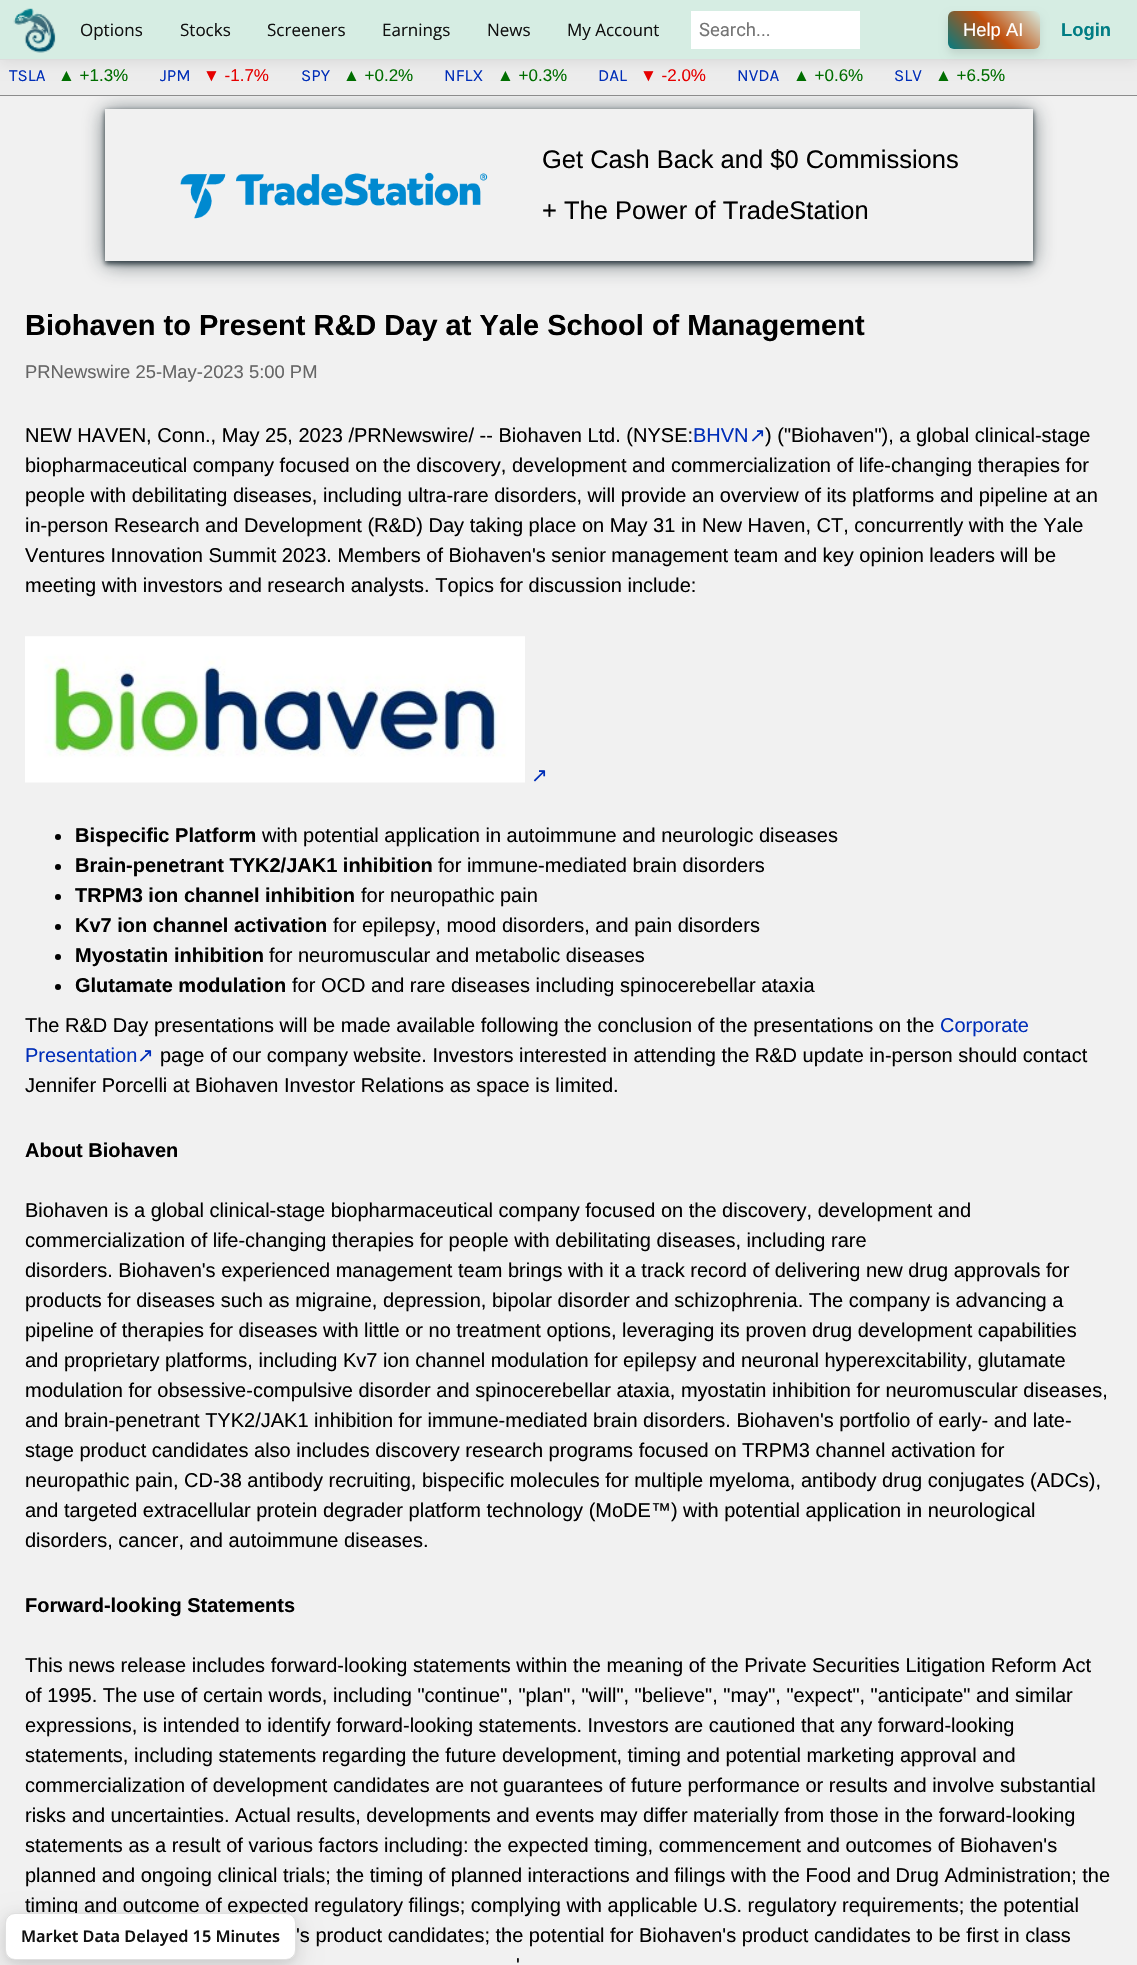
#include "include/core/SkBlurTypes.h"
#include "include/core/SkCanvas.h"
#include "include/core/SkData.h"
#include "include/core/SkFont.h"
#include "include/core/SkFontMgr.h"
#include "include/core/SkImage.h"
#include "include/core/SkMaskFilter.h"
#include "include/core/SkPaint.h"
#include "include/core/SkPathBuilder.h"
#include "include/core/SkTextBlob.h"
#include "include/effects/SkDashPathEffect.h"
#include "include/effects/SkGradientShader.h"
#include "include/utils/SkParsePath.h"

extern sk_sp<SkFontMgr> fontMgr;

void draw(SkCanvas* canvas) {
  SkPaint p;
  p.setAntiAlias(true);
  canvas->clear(SkColorSetRGB(241, 241, 241));
  canvas->save();
  canvas->clipPath(SkPathBuilder(SkPathFillType::kEvenOdd).moveTo(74, 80).lineTo(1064, 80).lineTo(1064, 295).lineTo(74, 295).close().moveTo(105, 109).lineTo(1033, 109).lineTo(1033, 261).lineTo(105, 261).close().detach(), true);
  p.setColor(SkColorSetARGB(153, 14, 30, 37));
  p.setMaskFilter(SkMaskFilter::MakeBlur(kNormal_SkBlurStyle, 10));
  canvas->drawRect(SkRect::MakeLTRB(105, 111, 1033, 264), p);
  p.setMaskFilter(nullptr);
  canvas->restore();
  p.setColor(SkColorSetRGB(237, 237, 237));
  canvas->drawRect(SkRect::MakeLTRB(0, 60, 1137, 95), p);
  p.setColor(SkColorSetARGB(20, 0, 0, 0));
  p.setMaskFilter(SkMaskFilter::MakeBlur(kNormal_SkBlurStyle, 6));
  canvas->drawRect(SkRect::MakeLTRB(0, 3, 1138, 63), p);
  p.setMaskFilter(nullptr);
  p.setColor(SkColorSetRGB(214, 237, 227));
  canvas->drawRect(SkRect::MakeLTRB(0, 0, 1137, 59), p);
  p.setColor(SkColorSetRGB(221, 221, 221));
  canvas->drawRect(SkRect::MakeLTRB(0, 59, 1137, 60), p);
  canvas->drawImageRect(SkImages::DeferredFromEncodedData(SkData::MakeFromFileName("images/1.png")), SkRect::MakeLTRB(13, 8, 56, 53), SkSamplingOptions());
  p.setColor(SK_ColorWHITE);
  canvas->drawRect(SkRect::MakeLTRB(691, 11, 860, 49), p);
  p.setColor(SkColorSetARGB(26, 0, 0, 0));
  p.setMaskFilter(SkMaskFilter::MakeBlur(kNormal_SkBlurStyle, 4));
  canvas->drawRoundRect(SkRect::MakeLTRB(948, 16, 1040, 54), 6, 6, p);
  p.setMaskFilter(nullptr);
  {
    const SkColor colors[] = {SkColorSetRGB(0, 125, 132), SkColorSetRGB(193, 78, 11), SkColorSetRGB(214, 237, 227)};
    const float stops[] = {0, 0.5f, 1};
    const SkPoint ends[] = {{961, 63}, {1026, -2.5f}};
    p.setShader(SkGradientShader::MakeLinear(ends, colors, stops, 3, SkTileMode::kClamp));
    p.setAlpha(255);
  }
  canvas->drawRoundRect(SkRect::MakeLTRB(948, 11, 1040, 49), 6, 6, p);
  p.setShader(nullptr);
  p.setColor(SkColorSetRGB(140, 140, 140));
  canvas->drawRect(SkRect::MakeLTRB(0, 95, 1137, 96), p);
  canvas->save();
  canvas->clipPath(SkPathBuilder(SkPathFillType::kEvenOdd).moveTo(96, 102).lineTo(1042, 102).lineTo(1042, 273).lineTo(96, 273).close().moveTo(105, 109).lineTo(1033, 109).lineTo(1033, 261).lineTo(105, 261).close().detach(), true);
  p.setColor(SkColorSetARGB(191, 14, 30, 37));
  p.setMaskFilter(SkMaskFilter::MakeBlur(kNormal_SkBlurStyle, 2.5f));
  canvas->drawRect(SkRect::MakeLTRB(105, 111, 1033, 264), p);
  p.setMaskFilter(nullptr);
  canvas->restore();
  canvas->drawImageRect(SkImages::DeferredFromEncodedData(SkData::MakeFromFileName("images/2.png")), SkRect::MakeLTRB(180, 172, 488, 219), SkSamplingOptions());
  canvas->drawImageRect(SkImages::DeferredFromEncodedData(SkData::MakeFromFileName("images/3.png")), SkRect::MakeLTRB(25, 636, 525, 783), SkSamplingOptions());
  p.setColor(SK_ColorBLACK);
  canvas->drawCircle(58, 837, 3, p);
  canvas->drawCircle(58, 867, 3, p);
  canvas->drawCircle(58, 897, 3, p);
  canvas->drawCircle(58, 927, 3, p);
  canvas->drawCircle(58, 957, 3, p);
  canvas->drawCircle(58, 987, 3, p);
  p.setColor(SkColorSetARGB(15, 0, 0, 0));
  p.setMaskFilter(SkMaskFilter::MakeBlur(kNormal_SkBlurStyle, 4));
  canvas->drawRoundRect(SkRect::MakeLTRB(5, 1915, 296, 1963), 10, 10, p);
  p.setMaskFilter(nullptr);
  p.setColor(SkColorSetARGB(31, 0, 0, 0));
  p.setMaskFilter(SkMaskFilter::MakeBlur(kNormal_SkBlurStyle, 12.5f));
  canvas->drawRoundRect(SkRect::MakeLTRB(5, 1920, 296, 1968), 10, 10, p);
  p.setMaskFilter(nullptr);
  SkFont font1(fontMgr->matchFamilyStyle("Open Sans", SkFontStyle::Normal()), 17);
  font1.setSubpixel(true);
  p.setColor(SkColorSetRGB(17, 17, 17));
  canvas->drawString("Options", 80, 36, font1, p);
  canvas->drawString("Stocks", 180, 36, font1, p);
  canvas->drawString("Screeners", 267, 36, font1, p);
  canvas->drawString("Earnings", 382, 36, font1, p);
  canvas->drawString("News", 487, 36, font1, p);
  canvas->drawString("My Account", 567, 36, font1, p);
  SkFont font2(fontMgr->matchFamilyStyle("Roboto", SkFontStyle::Normal()), 18.5f);
  font2.setSubpixel(true);
  p.setColor(SkColorSetRGB(117, 117, 117));
  canvas->drawString("Search...", 699, 36, font2, p);
  SkFont font3(fontMgr->matchFamilyStyle("Liberation Sans", SkFontStyle::Normal()), 18.4f);
  font3.setSubpixel(true);
  p.setColor(SK_ColorWHITE);
  canvas->drawString("Help AI", 963, 36, font3, p);
  SkFont font4(fontMgr->matchFamilyStyle("Liberation Sans", SkFontStyle::Bold()), 18.4f);
  font4.setSubpixel(true);
  p.setColor(SkColorSetRGB(0, 125, 132));
  canvas->drawString("Login", 1061, 36, font4, p);
  SkFont font5(fontMgr->matchFamilyStyle("Karla", SkFontStyle::Normal()), 17);
  font5.setSubpixel(true);
  p.setColor(SkColorSetRGB(0, 46, 184));
  canvas->drawString("TSLA", 9, 81, font5, p);
  SkFont font6(fontMgr->matchFamilyStyle("Liberation Sans", SkFontStyle::Normal()), 17);
  font6.setSubpixel(true);
  p.setColor(SkColorSetRGB(0, 110, 0));
  canvas->drawString("▲ +1.3%", 58, 81, font6, p);
  p.setColor(SkColorSetRGB(0, 46, 184));
  canvas->drawString("JPM", 160, 81, font5, p);
  p.setColor(SkColorSetRGB(230, 0, 0));
  canvas->drawString("▼ -1.7%", 203, 81, font6, p);
  p.setColor(SkColorSetRGB(0, 46, 184));
  canvas->drawString("SPY", 301, 81, font5, p);
  p.setColor(SkColorSetRGB(0, 110, 0));
  canvas->drawString("▲ +0.2%", 343, 81, font6, p);
  p.setColor(SkColorSetRGB(0, 46, 184));
  canvas->drawString("NFLX", 444, 81, font5, p);
  p.setColor(SkColorSetRGB(0, 110, 0));
  canvas->drawString("▲ +0.3%", 497, 81, font6, p);
  p.setColor(SkColorSetRGB(0, 46, 184));
  canvas->drawString("DAL", 598, 81, font5, p);
  p.setColor(SkColorSetRGB(230, 0, 0));
  canvas->drawString("▼ -2.0%", 640, 81, font6, p);
  p.setColor(SkColorSetRGB(0, 46, 184));
  canvas->drawString("NVDA", 737, 81, font5, p);
  p.setColor(SkColorSetRGB(0, 110, 0));
  canvas->drawString("▲ +0.6%", 793, 81, font6, p);
  p.setColor(SkColorSetRGB(0, 46, 184));
  canvas->drawString("SLV", 894, 81, font5, p);
  p.setColor(SkColorSetRGB(0, 110, 0));
  canvas->drawString("▲ +6.5%", 935, 81, font6, p);
  SkFont font7(fontMgr->matchFamilyStyle("Liberation Sans", SkFontStyle::Normal()), 25.5f);
  font7.setSubpixel(true);
  p.setColor(SK_ColorBLACK);
  canvas->drawString("Get Cash Back and $0 Commissions", 542, 168, font7, p);
  canvas->drawString("+ The Power of TradeStation", 542, 219, font7, p);
  SkFont font8(fontMgr->matchFamilyStyle("Liberation Sans", SkFontStyle::Bold()), 29);
  font8.setSubpixel(true);
  canvas->drawString("Biohaven to Present R&D Day at Yale School of Management", 25, 335, font8, p);
  p.setColor(SkColorSetRGB(102, 102, 102));
  canvas->drawString("PRNewswire 25-May-2023 5:00 PM", 25, 378, font3, p);
  SkFont font9(fontMgr->matchFamilyStyle("Liberation Sans", SkFontStyle::Normal()), 20);
  font9.setSubpixel(true);
  p.setColor(SK_ColorBLACK);
  canvas->drawString("NEW HAVEN, Conn., May 25, 2023 /PRNewswire/ -- Biohaven Ltd. (NYSE:", 25, 442, font9, p);
  p.setColor(SkColorSetRGB(0, 46, 184));
  canvas->drawString("BHVN", 693, 442, font9, p);
  SkFont font10(fontMgr->matchFamilyStyle("DejaVu Sans", SkFontStyle::Normal()), 20);
  font10.setSubpixel(true);
  canvas->drawString("↗", 749, 442, font10, p);
  p.setColor(SK_ColorBLACK);
  canvas->drawString(") (\"Biohaven\"), a global clinical-stage", 765, 442, font9, p);
  canvas->drawString("biopharmaceutical company focused on the discovery, development and commercialization of life-changing therapies for", 25, 472, font9, p);
  canvas->drawString("people with debilitating diseases, including ultra-rare disorders, will provide an overview of its platforms and pipeline at an", 25, 502, font9, p);
  canvas->drawString("in-person Research and Development (R&D) Day taking place on May 31 in New Haven, CT, concurrently with the Yale", 25, 532, font9, p);
  canvas->drawString("Ventures Innovation Summit 2023. Members of Biohaven's senior management team and key opinion leaders will be", 25, 562, font9, p);
  canvas->drawString("meeting with investors and research analysts. Topics for discussion include:", 25, 592, font9, p);
  p.setColor(SkColorSetRGB(0, 46, 184));
  canvas->drawString("↗", 531, 782, font10, p);
  SkFont font11(fontMgr->matchFamilyStyle("Liberation Sans", SkFontStyle::Bold()), 20);
  font11.setSubpixel(true);
  p.setColor(SK_ColorBLACK);
  canvas->drawString("Bispecific Platform", 75, 842, font11, p);
  canvas->drawString("with potential application in autoimmune and neurologic diseases", 262, 842, font9, p);
  canvas->drawString("Brain-penetrant TYK2/JAK1 inhibition", 75, 872, font11, p);
  canvas->drawString("for immune-mediated brain disorders", 438, 872, font9, p);
  canvas->drawString("TRPM3 ion channel inhibition", 75, 902, font11, p);
  canvas->drawString("for neuropathic pain", 361, 902, font9, p);
  canvas->drawString("Kv7 ion channel activation", 75, 932, font11, p);
  canvas->drawString("for epilepsy, mood disorders, and pain disorders", 333, 932, font9, p);
  canvas->drawString("Myostatin inhibition", 75, 962, font11, p);
  canvas->drawString("for neuromuscular and metabolic diseases", 269, 962, font9, p);
  canvas->drawString("Glutamate modulation", 75, 992, font11, p);
  canvas->drawString("for OCD and rare diseases including spinocerebellar ataxia", 292, 992, font9, p);
  canvas->drawString("The R&D Day presentations will be made available following the conclusion of the presentations on the", 25, 1032, font9, p);
  p.setColor(SkColorSetRGB(0, 46, 184));
  canvas->drawString("Corporate", 940, 1032, font9, p);
  canvas->drawString("Presentation", 25, 1062, font9, p);
  canvas->drawString("↗", 137, 1062, font10, p);
  p.setColor(SK_ColorBLACK);
  canvas->drawString("page of our company website. Investors interested in attending the R&D update in-person should contact", 160, 1062, font9, p);
  canvas->drawString("Jennifer Porcelli at Biohaven Investor Relations as space is limited.", 25, 1092, font9, p);
  canvas->drawString("About Biohaven", 25, 1157, font11, p);
  canvas->drawString("Biohaven is a global clinical-stage biopharmaceutical company focused on the discovery, development and", 25, 1217, font9, p);
  canvas->drawString("commercialization of life-changing therapies for people with debilitating diseases, including rare", 25, 1247, font9, p);
  canvas->drawString("disorders. Biohaven's experienced management team brings with it a track record of delivering new drug approvals for", 25, 1277, font9, p);
  canvas->drawString("products for diseases such as migraine, depression, bipolar disorder and schizophrenia. The company is advancing a", 25, 1307, font9, p);
  canvas->drawString("pipeline of therapies for diseases with little or no treatment options, leveraging its proven drug development capabilities", 25, 1337, font9, p);
  canvas->drawString("and proprietary platforms, including Kv7 ion channel modulation for epilepsy and neuronal hyperexcitability, glutamate", 25, 1367, font9, p);
  canvas->drawString("modulation for obsessive-compulsive disorder and spinocerebellar ataxia, myostatin inhibition for neuromuscular diseases,", 25, 1397, font9, p);
  canvas->drawString("and brain-penetrant TYK2/JAK1 inhibition for immune-mediated brain disorders. Biohaven's portfolio of early- and late-", 25, 1427, font9, p);
  canvas->drawString("stage product candidates also includes discovery research programs focused on TRPM3 channel activation for", 25, 1457, font9, p);
  canvas->drawString("neuropathic pain, CD-38 antibody recruiting, bispecific molecules for multiple myeloma, antibody drug conjugates (ADCs),", 25, 1487, font9, p);
  canvas->drawString("and targeted extracellular protein degrader platform technology (MoDE™) with potential application in neurological", 25, 1517, font9, p);
  canvas->drawString("disorders, cancer, and autoimmune diseases.", 25, 1547, font9, p);
  canvas->drawString("Forward-looking Statements", 25, 1612, font11, p);
  canvas->drawString("This news release includes forward-looking statements within the meaning of the Private Securities Litigation Reform Act", 25, 1672, font9, p);
  canvas->drawString("of 1995. The use of certain words, including \"continue\", \"plan\", \"will\", \"believe\", \"may\", \"expect\", \"anticipate\" and similar", 25, 1702, font9, p);
  canvas->drawString("expressions, is intended to identify forward-looking statements. Investors are cautioned that any forward-looking", 25, 1732, font9, p);
  canvas->drawString("statements, including statements regarding the future development, timing and potential marketing approval and", 25, 1762, font9, p);
  canvas->drawString("commercialization of development candidates are not guarantees of future performance or results and involve substantial", 25, 1792, font9, p);
  canvas->drawString("risks and uncertainties. Actual results, developments and events may differ materially from those in the forward-looking", 25, 1822, font9, p);
  canvas->drawString("statements as a result of various factors including: the expected timing, commencement and outcomes of Biohaven's", 25, 1852, font9, p);
  canvas->drawString("planned and ongoing clinical trials; the timing of planned interactions and filings with the Food and Drug Administration; the", 25, 1882, font9, p);
  canvas->drawString("timing and outcome of expected regulatory filings; complying with applicable U.S. regulatory requirements; the potential", 25, 1912, font9, p);
  canvas->drawString("'s product candidates; the potential for Biohaven's product candidates to be first in class", 296, 1942, font9, p);
  canvas->drawString("'", 516, 1972, font9, p);
  p.setColor(SK_ColorWHITE);
  canvas->drawRoundRect(SkRect::MakeLTRB(5, 1913, 296, 1960), 10, 10, p);
  p.setStyle(SkPaint::kStroke_Style);
  p.setStrokeWidth(1);
  p.setColor(SkColorSetARGB(31, 0, 0, 0));
  canvas->drawRoundRect(SkRect::MakeLTRB(5.5f, 1913.5f, 295.5f, 1959.5f), 9.5f, 9.5f, p);
  SkFont font12(fontMgr->matchFamilyStyle("Noto Sans", SkFontStyle(600, SkFontStyle::kNormal_Width, SkFontStyle::kUpright_Slant)), 16.25f);
  font12.setSubpixel(true);
  p.setStyle(SkPaint::kFill_Style);
  p.setColor(SkColorSetRGB(17, 17, 17));
  canvas->drawString("Market Data Delayed 15 Minutes", 21, 1942, font12, p);
}
